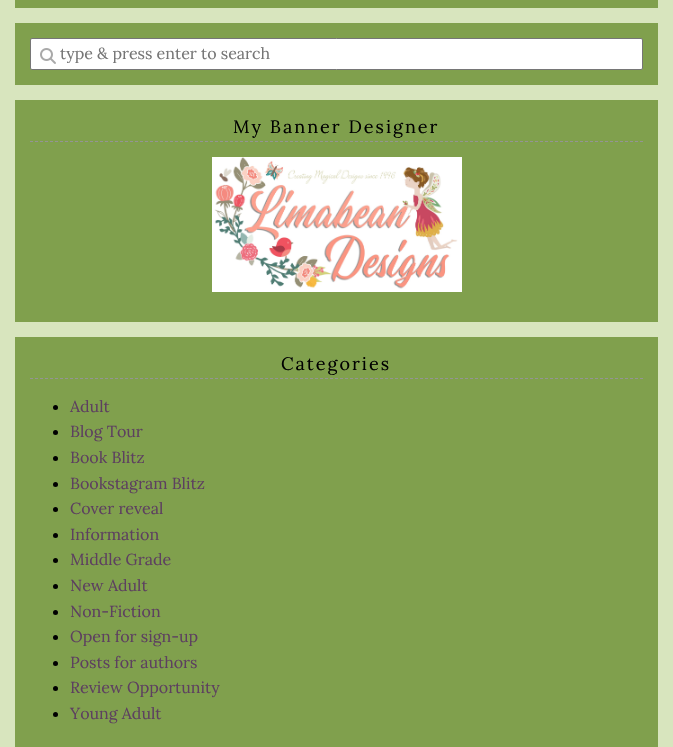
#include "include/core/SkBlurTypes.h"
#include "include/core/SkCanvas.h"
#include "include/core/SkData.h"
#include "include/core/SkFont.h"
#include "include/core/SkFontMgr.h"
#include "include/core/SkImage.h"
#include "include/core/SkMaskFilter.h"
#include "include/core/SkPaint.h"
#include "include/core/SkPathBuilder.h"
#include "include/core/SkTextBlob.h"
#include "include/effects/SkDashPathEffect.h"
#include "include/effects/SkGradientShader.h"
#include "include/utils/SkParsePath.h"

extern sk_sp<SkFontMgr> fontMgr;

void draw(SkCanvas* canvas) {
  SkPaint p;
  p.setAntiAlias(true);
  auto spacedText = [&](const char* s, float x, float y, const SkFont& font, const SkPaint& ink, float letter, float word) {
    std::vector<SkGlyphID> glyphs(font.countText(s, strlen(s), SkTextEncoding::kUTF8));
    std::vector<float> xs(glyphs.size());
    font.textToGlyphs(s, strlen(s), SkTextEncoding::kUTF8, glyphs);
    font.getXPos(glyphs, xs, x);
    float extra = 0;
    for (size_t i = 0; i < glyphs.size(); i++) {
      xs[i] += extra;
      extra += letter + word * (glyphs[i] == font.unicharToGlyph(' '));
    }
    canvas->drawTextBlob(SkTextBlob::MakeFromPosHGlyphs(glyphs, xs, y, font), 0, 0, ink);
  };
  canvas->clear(SkColorSetRGB(216, 229, 190));
  p.setColor(SkColorSetRGB(128, 160, 77));
  canvas->drawRect(SkRect::MakeLTRB(15, 0, 658, 8), p);
  canvas->drawRect(SkRect::MakeLTRB(15, 23, 658, 85), p);
  p.setColor(SK_ColorWHITE);
  canvas->drawRoundRect(SkRect::MakeLTRB(30.5f, 38.5f, 642.5f, 69.5f), 1.5f, 1.5f, p);
  p.setStyle(SkPaint::kStroke_Style);
  p.setStrokeWidth(1);
  p.setColor(SkColorSetRGB(118, 118, 118));
  canvas->drawRoundRect(SkRect::MakeLTRB(30.5f, 38.5f, 642.5f, 69.5f), 1.5f, 1.5f, p);
  canvas->drawImageRect(SkImages::DeferredFromEncodedData(SkData::MakeFromFileName("images/1.png")), SkRect::MakeLTRB(40, 48, 56, 64), SkSamplingOptions());
  p.setStyle(SkPaint::kFill_Style);
  p.setColor(SkColorSetRGB(128, 160, 77));
  canvas->drawRect(SkRect::MakeLTRB(15, 100, 658, 322), p);
  p.setStyle(SkPaint::kStroke_Style);
  p.setColor(SkColorSetRGB(148, 148, 148));
  p.setPathEffect(SkDashPathEffect::Make({{3, 2}}, 0));
  canvas->drawPath(SkPathBuilder().moveTo(30, 141.5f).lineTo(643, 141.5f).detach(), p);
  p.setPathEffect(nullptr);
  canvas->drawImageRect(SkImages::DeferredFromEncodedData(SkData::MakeFromFileName("images/2.png")), SkRect::MakeLTRB(212, 157, 462, 292), SkSamplingOptions());
  p.setStyle(SkPaint::kFill_Style);
  p.setColor(SkColorSetRGB(128, 160, 77));
  canvas->drawRect(SkRect::MakeLTRB(15, 337, 658, 747), p);
  p.setStyle(SkPaint::kStroke_Style);
  p.setColor(SkColorSetRGB(148, 148, 148));
  p.setPathEffect(SkDashPathEffect::Make({{3, 2}}, 0));
  canvas->drawPath(SkPathBuilder().moveTo(30, 378.5f).lineTo(643, 378.5f).detach(), p);
  p.setPathEffect(nullptr);
  p.setStyle(SkPaint::kFill_Style);
  p.setColor(SK_ColorBLACK);
  canvas->drawCircle(55.5f, 407.5f, 2.5f, p);
  canvas->drawCircle(55.5f, 432.5f, 2.5f, p);
  canvas->drawCircle(55.5f, 458.5f, 2.5f, p);
  canvas->drawCircle(55.5f, 484.5f, 2.5f, p);
  canvas->drawCircle(55.5f, 509.5f, 2.5f, p);
  canvas->drawCircle(55.5f, 535.5f, 2.5f, p);
  canvas->drawCircle(55.5f, 560.5f, 2.5f, p);
  canvas->drawCircle(55.5f, 586.5f, 2.5f, p);
  canvas->drawCircle(55.5f, 612.5f, 2.5f, p);
  canvas->drawCircle(55.5f, 637.5f, 2.5f, p);
  canvas->drawCircle(55.5f, 663.5f, 2.5f, p);
  canvas->drawCircle(55.5f, 688.5f, 2.5f, p);
  canvas->drawCircle(55.5f, 714.5f, 2.5f, p);
  canvas->save();
  canvas->clipRect(SkRect::MakeLTRB(60, 43, 635, 63));
  SkFont font1(fontMgr->matchFamilyStyle("Lora", SkFontStyle::Normal()), 16);
  font1.setSubpixel(true);
  p.setColor(SkColorSetRGB(117, 117, 117));
  canvas->drawString("type & press enter to search", 60, 59, font1, p);
  canvas->restore();
  SkFont font2(fontMgr->matchFamilyStyle("Lora", SkFontStyle::Normal()), 18);
  font2.setSubpixel(true);
  p.setColor(SK_ColorBLACK);
  spacedText("My Banner Designer", 233, 133, font2, p, 2, 0);
  spacedText("Categories", 281, 370, font2, p, 2, 0);
  p.setColor(SkColorSetRGB(93, 64, 95));
  canvas->drawString("Adult", 70, 412, font1, p);
  canvas->drawString("Blog Tour", 70, 437, font1, p);
  canvas->drawString("Book Blitz", 70, 463, font1, p);
  canvas->drawString("Bookstagram Blitz", 70, 489, font1, p);
  canvas->drawString("Cover reveal", 70, 514, font1, p);
  canvas->drawString("Information", 70, 540, font1, p);
  canvas->drawString("Middle Grade", 70, 565, font1, p);
  canvas->drawString("New Adult", 70, 591, font1, p);
  canvas->drawString("Non-Fiction", 70, 617, font1, p);
  canvas->drawString("Open for sign-up", 70, 642, font1, p);
  canvas->drawString("Posts for authors", 70, 668, font1, p);
  canvas->drawString("Review Opportunity", 70, 693, font1, p);
  canvas->drawString("Young Adult", 70, 719, font1, p);
}
